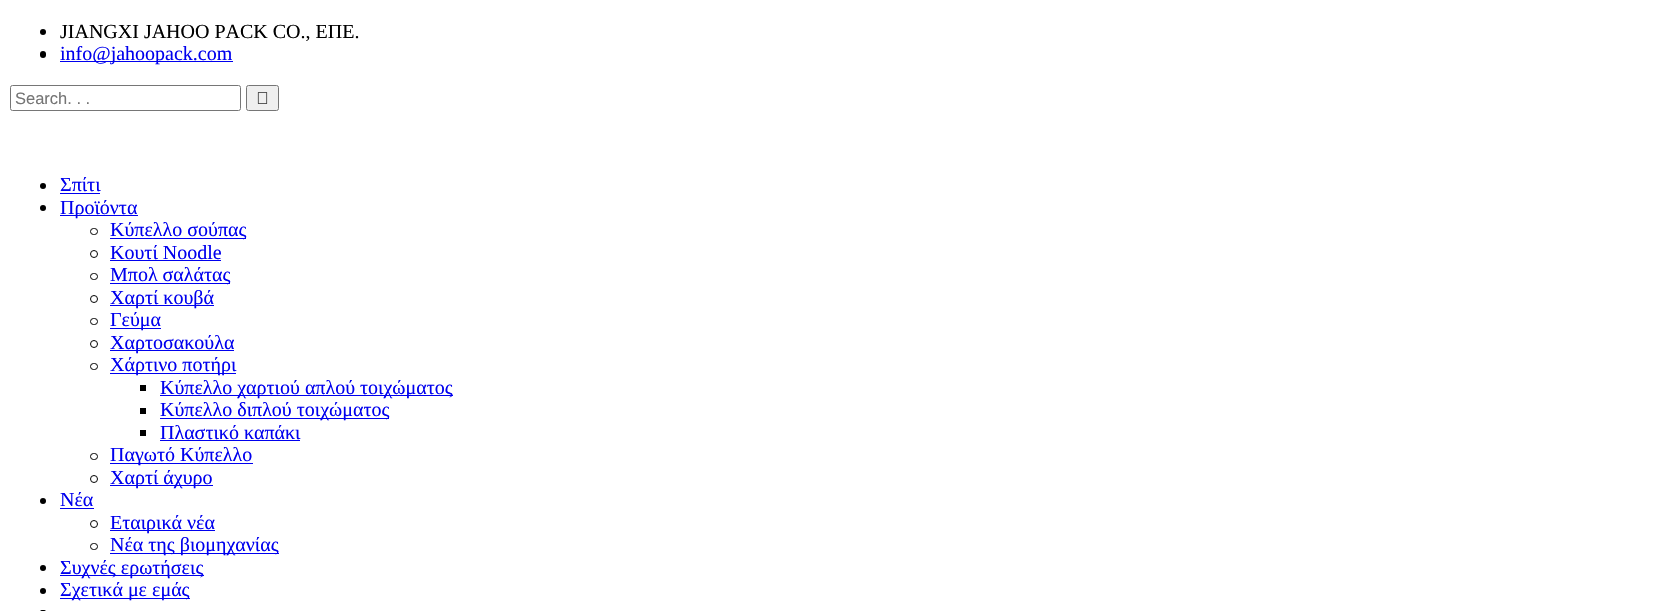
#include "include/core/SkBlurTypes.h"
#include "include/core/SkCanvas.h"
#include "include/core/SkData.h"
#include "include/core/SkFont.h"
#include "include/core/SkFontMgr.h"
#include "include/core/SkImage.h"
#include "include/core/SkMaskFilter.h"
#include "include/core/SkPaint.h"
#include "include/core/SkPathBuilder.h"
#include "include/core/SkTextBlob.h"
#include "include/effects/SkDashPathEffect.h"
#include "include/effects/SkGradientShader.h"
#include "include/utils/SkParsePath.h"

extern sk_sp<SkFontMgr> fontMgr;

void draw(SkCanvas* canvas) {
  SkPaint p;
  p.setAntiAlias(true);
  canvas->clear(SK_ColorWHITE);
  p.setColor(SK_ColorBLACK);
  canvas->drawCircle(43, 32, 3, p);
  canvas->drawRoundRect(SkRect::MakeLTRB(40, 51, 46, 58), 3, 3, p);
  p.setColor(SkColorSetRGB(0, 0, 238));
  canvas->drawRect(SkRect::MakeLTRB(60, 61, 233, 62), p);
  p.setStyle(SkPaint::kStroke_Style);
  p.setStrokeWidth(1);
  p.setColor(SkColorSetRGB(118, 118, 118));
  canvas->drawRoundRect(SkRect::MakeLTRB(10.5f, 85.5f, 240.5f, 110.5f), 2, 2, p);
  p.setStyle(SkPaint::kFill_Style);
  p.setColor(SkColorSetRGB(239, 239, 239));
  canvas->drawRoundRect(SkRect::MakeLTRB(246.5f, 85.5f, 278.5f, 110.5f), 2, 2, p);
  p.setStyle(SkPaint::kStroke_Style);
  p.setColor(SkColorSetRGB(118, 118, 118));
  canvas->drawRoundRect(SkRect::MakeLTRB(246.5f, 85.5f, 278.5f, 110.5f), 2, 2, p);
  canvas->drawImageRect(SkImages::DeferredFromEncodedData(SkData::MakeFromFileName("images/1.png")), SkRect::MakeLTRB(257, 92, 268, 104), SkSamplingOptions());
  p.setStyle(SkPaint::kFill_Style);
  p.setColor(SK_ColorBLACK);
  canvas->drawCircle(43, 186, 3, p);
  p.setColor(SkColorSetRGB(0, 0, 238));
  canvas->drawRect(SkRect::MakeLTRB(60, 193, 100, 194), p);
  p.setColor(SK_ColorBLACK);
  canvas->drawCircle(43, 208, 3, p);
  p.setColor(SkColorSetRGB(0, 0, 238));
  canvas->drawRect(SkRect::MakeLTRB(60, 215, 138, 216), p);
  p.setStyle(SkPaint::kStroke_Style);
  p.setColor(SK_ColorBLACK);
  canvas->drawRoundRect(SkRect::MakeLTRB(90.5f, 228.5f, 97.5f, 234.5f), 3, 3, p);
  p.setStyle(SkPaint::kFill_Style);
  p.setColor(SkColorSetRGB(0, 0, 238));
  canvas->drawRect(SkRect::MakeLTRB(110, 238, 246, 239), p);
  p.setStyle(SkPaint::kStroke_Style);
  p.setColor(SK_ColorBLACK);
  canvas->drawCircle(94, 254, 3.5f, p);
  p.setStyle(SkPaint::kFill_Style);
  p.setColor(SkColorSetRGB(0, 0, 238));
  canvas->drawRect(SkRect::MakeLTRB(110, 260, 221, 261), p);
  p.setStyle(SkPaint::kStroke_Style);
  p.setColor(SK_ColorBLACK);
  canvas->drawRoundRect(SkRect::MakeLTRB(90.5f, 273.5f, 97.5f, 279.5f), 3, 3, p);
  p.setStyle(SkPaint::kFill_Style);
  p.setColor(SkColorSetRGB(0, 0, 238));
  canvas->drawRect(SkRect::MakeLTRB(110, 283, 230, 284), p);
  p.setStyle(SkPaint::kStroke_Style);
  p.setColor(SK_ColorBLACK);
  canvas->drawCircle(94, 299, 3.5f, p);
  p.setStyle(SkPaint::kFill_Style);
  p.setColor(SkColorSetRGB(0, 0, 238));
  canvas->drawRect(SkRect::MakeLTRB(110, 305, 214, 306), p);
  p.setStyle(SkPaint::kStroke_Style);
  p.setColor(SK_ColorBLACK);
  canvas->drawRoundRect(SkRect::MakeLTRB(90.5f, 318.5f, 97.5f, 324.5f), 3, 3, p);
  p.setStyle(SkPaint::kFill_Style);
  p.setColor(SkColorSetRGB(0, 0, 238));
  canvas->drawRect(SkRect::MakeLTRB(110, 328, 161, 329), p);
  p.setStyle(SkPaint::kStroke_Style);
  p.setColor(SK_ColorBLACK);
  canvas->drawCircle(94, 344, 3.5f, p);
  p.setStyle(SkPaint::kFill_Style);
  p.setColor(SkColorSetRGB(0, 0, 238));
  canvas->drawRect(SkRect::MakeLTRB(110, 350, 234, 351), p);
  p.setStyle(SkPaint::kStroke_Style);
  p.setColor(SK_ColorBLACK);
  canvas->drawRoundRect(SkRect::MakeLTRB(90.5f, 363.5f, 97.5f, 369.5f), 3, 3, p);
  p.setStyle(SkPaint::kFill_Style);
  p.setColor(SkColorSetRGB(0, 0, 238));
  canvas->drawRect(SkRect::MakeLTRB(110, 373, 236, 374), p);
  p.setColor(SK_ColorBLACK);
  canvas->drawRect(SkRect::MakeLTRB(140, 385, 146, 391), p);
  p.setColor(SkColorSetRGB(0, 0, 238));
  canvas->drawRect(SkRect::MakeLTRB(160, 395, 453, 396), p);
  p.setColor(SK_ColorBLACK);
  canvas->drawRect(SkRect::MakeLTRB(140, 408, 146, 414), p);
  p.setColor(SkColorSetRGB(0, 0, 238));
  canvas->drawRect(SkRect::MakeLTRB(160, 418, 389, 419), p);
  p.setColor(SK_ColorBLACK);
  canvas->drawRect(SkRect::MakeLTRB(140, 430, 146, 436), p);
  p.setColor(SkColorSetRGB(0, 0, 238));
  canvas->drawRect(SkRect::MakeLTRB(160, 440, 300, 441), p);
  p.setStyle(SkPaint::kStroke_Style);
  p.setColor(SK_ColorBLACK);
  canvas->drawRoundRect(SkRect::MakeLTRB(90.5f, 453.5f, 97.5f, 459.5f), 3, 3, p);
  p.setStyle(SkPaint::kFill_Style);
  p.setColor(SkColorSetRGB(0, 0, 238));
  canvas->drawRect(SkRect::MakeLTRB(110, 463, 253, 464), p);
  p.setStyle(SkPaint::kStroke_Style);
  p.setColor(SK_ColorBLACK);
  canvas->drawCircle(94, 479, 3.5f, p);
  p.setStyle(SkPaint::kFill_Style);
  p.setColor(SkColorSetRGB(0, 0, 238));
  canvas->drawRect(SkRect::MakeLTRB(110, 485, 213, 486), p);
  p.setColor(SK_ColorBLACK);
  canvas->drawCircle(43, 501, 3, p);
  p.setColor(SkColorSetRGB(0, 0, 238));
  canvas->drawRect(SkRect::MakeLTRB(60, 508, 94, 509), p);
  p.setStyle(SkPaint::kStroke_Style);
  p.setColor(SK_ColorBLACK);
  canvas->drawCircle(94, 524, 3.5f, p);
  p.setStyle(SkPaint::kFill_Style);
  p.setColor(SkColorSetRGB(0, 0, 238));
  canvas->drawRect(SkRect::MakeLTRB(110, 530, 215, 531), p);
  p.setStyle(SkPaint::kStroke_Style);
  p.setColor(SK_ColorBLACK);
  canvas->drawRoundRect(SkRect::MakeLTRB(90.5f, 543.5f, 97.5f, 549.5f), 3, 3, p);
  p.setStyle(SkPaint::kFill_Style);
  p.setColor(SkColorSetRGB(0, 0, 238));
  canvas->drawRect(SkRect::MakeLTRB(110, 553, 279, 554), p);
  p.setColor(SK_ColorBLACK);
  canvas->drawCircle(43, 568, 3, p);
  p.setColor(SkColorSetRGB(0, 0, 238));
  canvas->drawRect(SkRect::MakeLTRB(60, 575, 204, 576), p);
  p.setColor(SK_ColorBLACK);
  canvas->drawCircle(43, 591, 3, p);
  p.setColor(SkColorSetRGB(0, 0, 238));
  canvas->drawRect(SkRect::MakeLTRB(60, 598, 190, 599), p);
  p.setColor(SK_ColorBLACK);
  canvas->drawRoundRect(SkRect::MakeLTRB(40, 610, 46, 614), 3, 3, p);
  SkFont font1(fontMgr->matchFamilyStyle("Liberation Serif", SkFontStyle::Normal()), 20);
  font1.setSubpixel(true);
  canvas->drawString("JIANGXI JAHOO PACK CO., ΕΠΕ.", 60, 38, font1, p);
  p.setColor(SkColorSetRGB(0, 0, 238));
  canvas->drawString("info@jahoopack.com", 60, 60, font1, p);
  SkFont font2(fontMgr->matchFamilyStyle("Liberation Sans", SkFontStyle::Normal()), 16.5f);
  font2.setSubpixel(true);
  p.setColor(SkColorSetRGB(117, 117, 117));
  canvas->drawString("Search. . .", 15, 104, font2, p);
  p.setColor(SkColorSetRGB(0, 0, 238));
  canvas->drawString("Σπίτι", 60, 191, font1, p);
  canvas->drawString("Προϊόντα", 60, 214, font1, p);
  canvas->drawString("Κύπελλο σούπας", 110, 236, font1, p);
  canvas->drawString("Κουτί Noodle", 110, 259, font1, p);
  canvas->drawString("Μπολ σαλάτας", 110, 281, font1, p);
  canvas->drawString("Χαρτί κουβά", 110, 304, font1, p);
  canvas->drawString("Γεύμα", 110, 326, font1, p);
  canvas->drawString("Χαρτοσακούλα", 110, 349, font1, p);
  canvas->drawString("Χάρτινο ποτήρι", 110, 371, font1, p);
  canvas->drawString("Κύπελλο χαρτιού απλού τοιχώματος", 160, 394, font1, p);
  canvas->drawString("Κύπελλο διπλού τοιχώματος", 160, 416, font1, p);
  canvas->drawString("Πλαστικό καπάκι", 160, 439, font1, p);
  canvas->drawString("Παγωτό Κύπελλο", 110, 461, font1, p);
  canvas->drawString("Χαρτί άχυρο", 110, 484, font1, p);
  canvas->drawString("Νέα", 60, 506, font1, p);
  canvas->drawString("Εταιρικά νέα", 110, 529, font1, p);
  canvas->drawString("Νέα της βιομηχανίας", 110, 551, font1, p);
  canvas->drawString("Συχνές ερωτήσεις", 60, 574, font1, p);
  canvas->drawString("Σχετικά με εμάς", 60, 596, font1, p);
}
